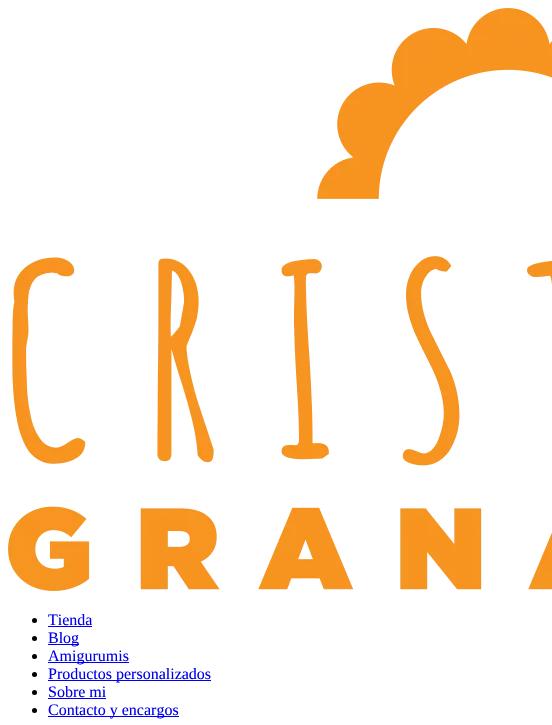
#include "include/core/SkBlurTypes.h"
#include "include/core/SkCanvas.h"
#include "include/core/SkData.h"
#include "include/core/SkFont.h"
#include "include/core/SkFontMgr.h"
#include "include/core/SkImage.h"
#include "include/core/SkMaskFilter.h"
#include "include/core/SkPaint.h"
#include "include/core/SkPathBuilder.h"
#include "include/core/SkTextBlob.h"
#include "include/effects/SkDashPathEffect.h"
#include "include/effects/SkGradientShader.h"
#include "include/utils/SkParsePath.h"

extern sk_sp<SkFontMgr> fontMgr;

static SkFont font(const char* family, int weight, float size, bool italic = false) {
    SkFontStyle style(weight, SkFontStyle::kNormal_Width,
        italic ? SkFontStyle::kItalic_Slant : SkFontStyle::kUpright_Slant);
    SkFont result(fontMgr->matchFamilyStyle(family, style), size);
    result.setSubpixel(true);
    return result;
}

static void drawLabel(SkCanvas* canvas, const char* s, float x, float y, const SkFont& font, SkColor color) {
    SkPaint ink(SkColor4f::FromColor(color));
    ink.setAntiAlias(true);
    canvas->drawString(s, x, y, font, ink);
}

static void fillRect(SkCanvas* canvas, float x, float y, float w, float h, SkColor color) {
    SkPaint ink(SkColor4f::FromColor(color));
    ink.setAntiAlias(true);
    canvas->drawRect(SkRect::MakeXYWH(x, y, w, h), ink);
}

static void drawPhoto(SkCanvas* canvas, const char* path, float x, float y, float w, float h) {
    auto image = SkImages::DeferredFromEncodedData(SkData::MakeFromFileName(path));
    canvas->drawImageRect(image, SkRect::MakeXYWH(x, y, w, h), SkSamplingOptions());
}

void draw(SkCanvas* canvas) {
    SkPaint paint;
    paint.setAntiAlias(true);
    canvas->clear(0xFFFFFFFF);
    drawPhoto(canvas, "assets/img1.png", 8, 8, 544, 583);
    paint.setColor(0xFF000000);
    canvas->drawCircle(34.5f, 620.5f, 2.5f, paint);
    SkFont font1 = font("Liberation Serif", 400, 16);
    drawLabel(canvas, "Tienda", 48, 625, font1, 0xFF0000EE);
    fillRect(canvas, 48, 626, 44, 1, 0xFF0000EE);
    canvas->drawCircle(34.5f, 638.5f, 2.5f, paint);
    fillRect(canvas, 48, 644, 31, 1, 0xFF0000EE);
    drawLabel(canvas, "Blog", 48, 643, font1, 0xFF0000EE);
    canvas->drawCircle(34.5f, 656.5f, 2.5f, paint);
    fillRect(canvas, 48, 662, 81, 1, 0xFF0000EE);
    drawLabel(canvas, "Amigurumis", 48, 661, font1, 0xFF0000EE);
    canvas->drawCircle(34.5f, 674.5f, 2.5f, paint);
    fillRect(canvas, 48, 680, 163, 1, 0xFF0000EE);
    drawLabel(canvas, "Productos personalizados", 48, 679, font1, 0xFF0000EE);
    canvas->drawCircle(34.5f, 692.5f, 2.5f, paint);
    drawLabel(canvas, "Sobre mi", 48, 697, font1, 0xFF0000EE);
    fillRect(canvas, 48, 698, 58, 1, 0xFF0000EE);
    canvas->drawCircle(34.5f, 710.5f, 2.5f, paint);
    fillRect(canvas, 48, 716, 131, 1, 0xFF0000EE);
    drawLabel(canvas, "Contacto y encargos", 48, 715, font1, 0xFF0000EE);
}
